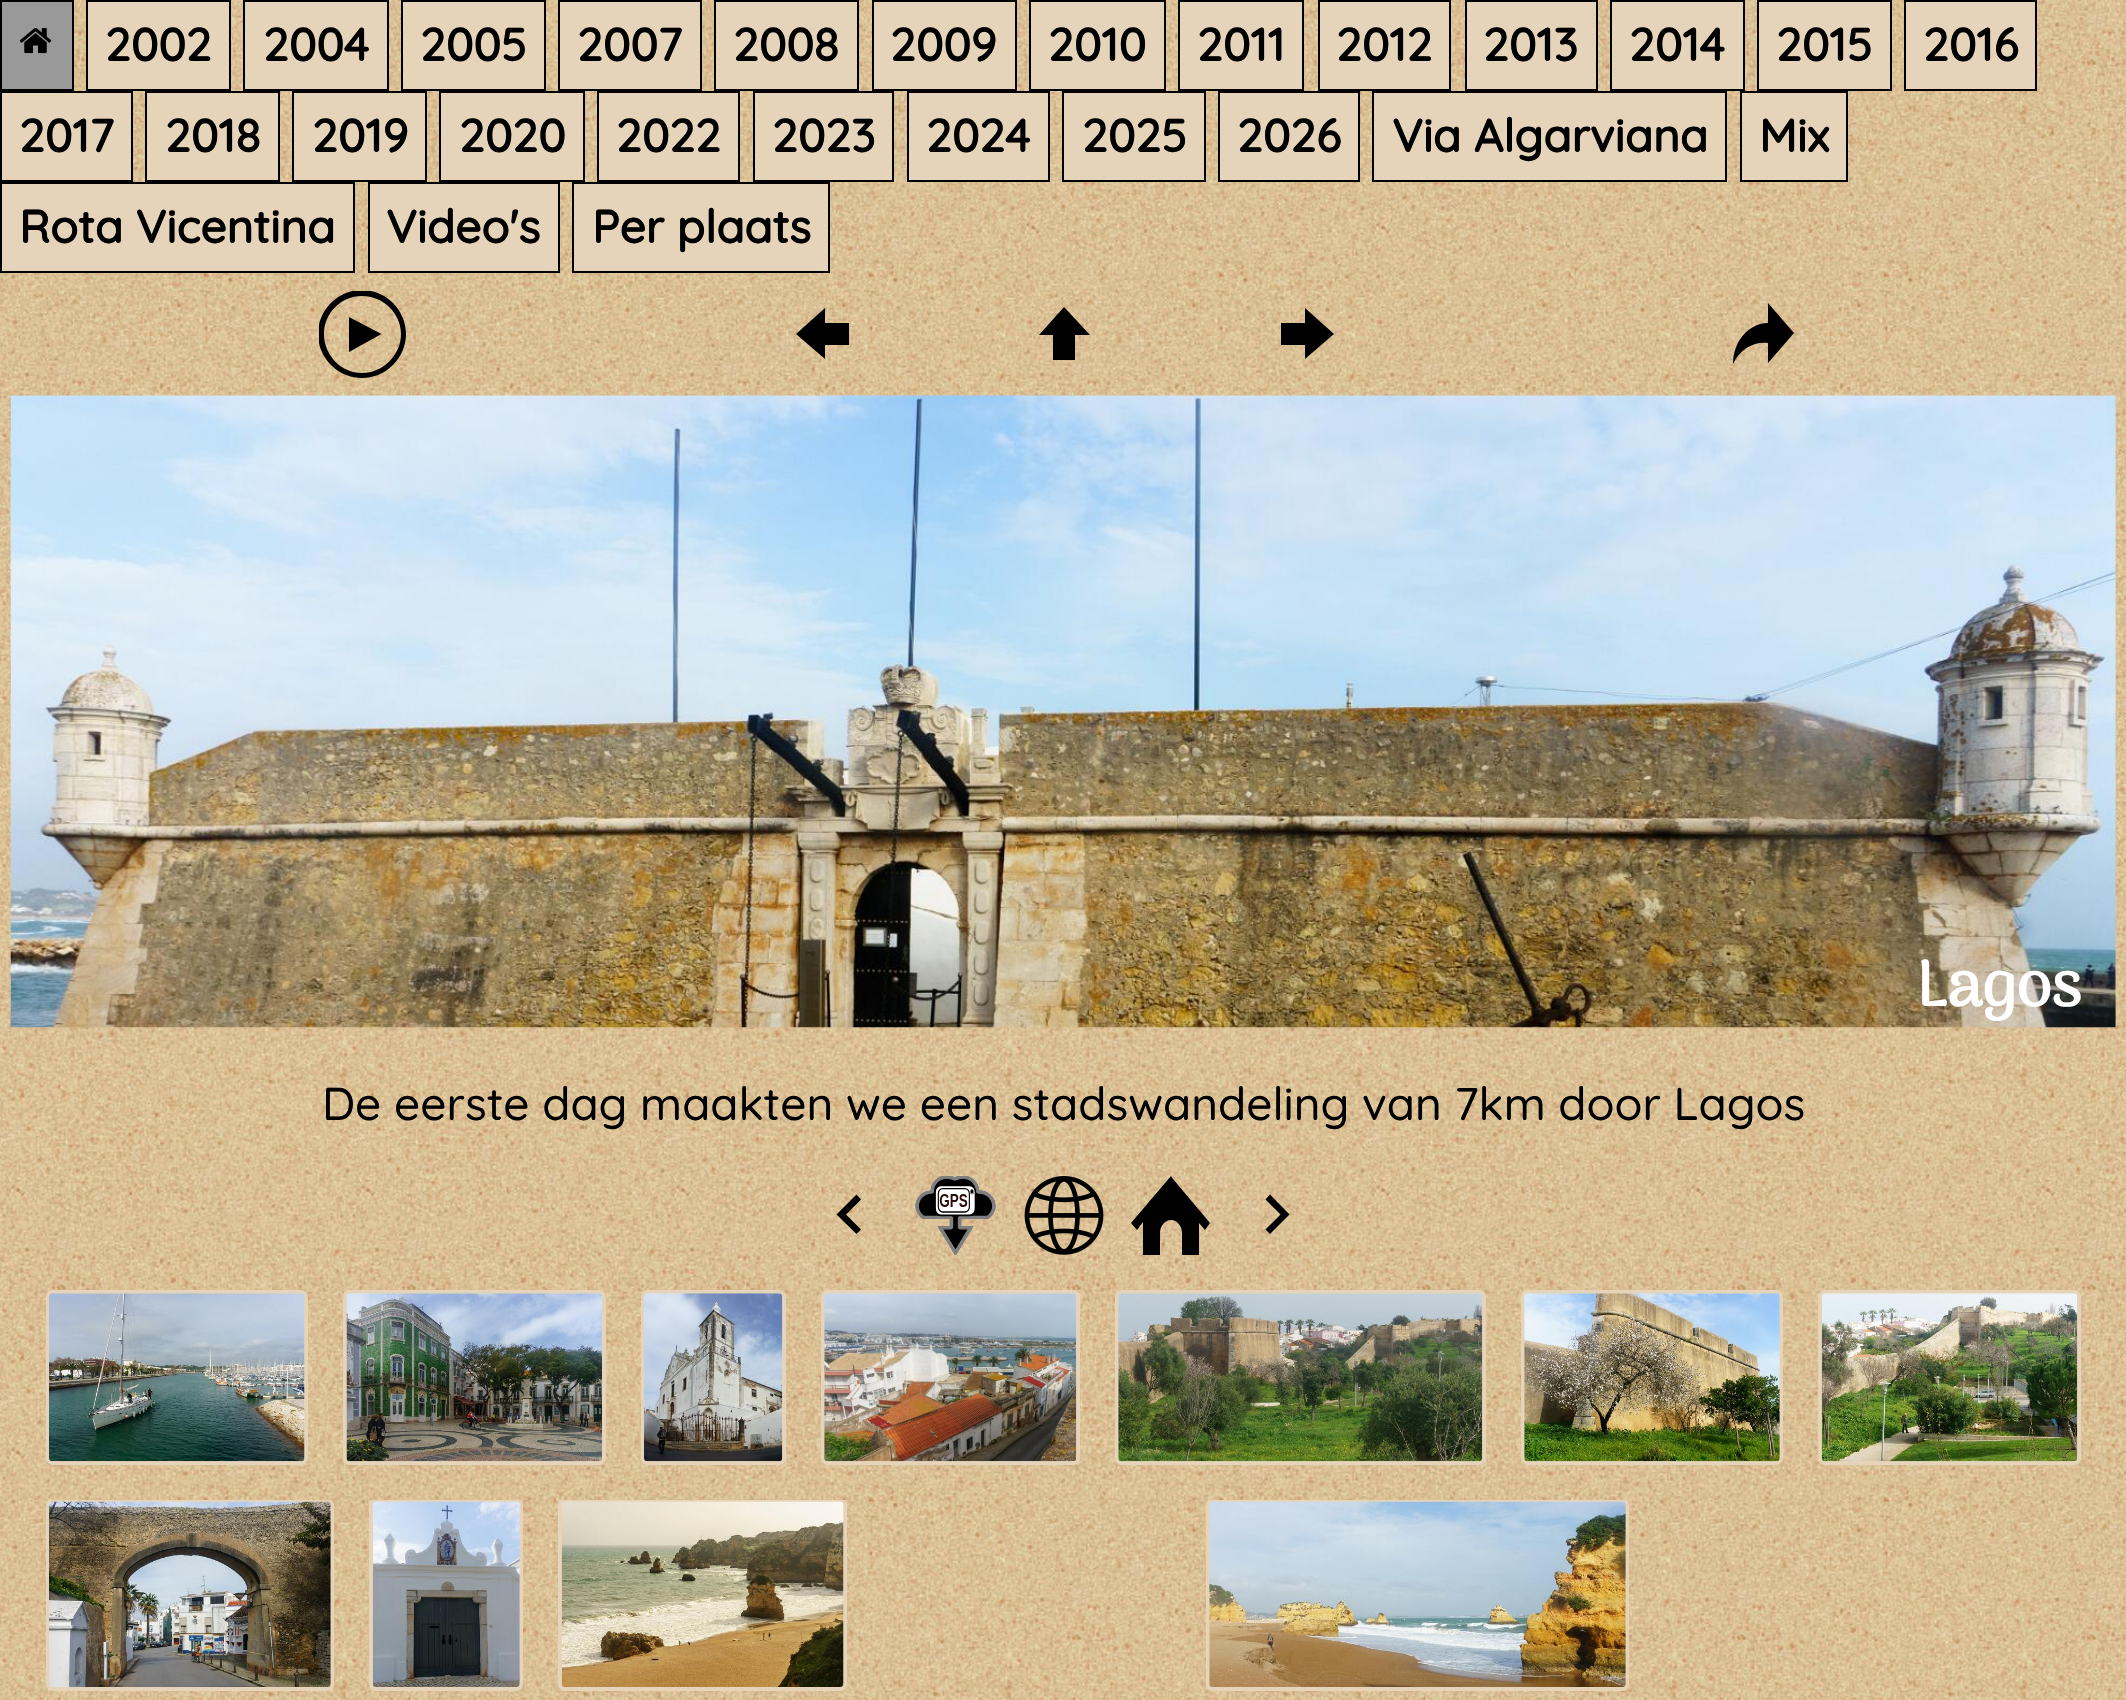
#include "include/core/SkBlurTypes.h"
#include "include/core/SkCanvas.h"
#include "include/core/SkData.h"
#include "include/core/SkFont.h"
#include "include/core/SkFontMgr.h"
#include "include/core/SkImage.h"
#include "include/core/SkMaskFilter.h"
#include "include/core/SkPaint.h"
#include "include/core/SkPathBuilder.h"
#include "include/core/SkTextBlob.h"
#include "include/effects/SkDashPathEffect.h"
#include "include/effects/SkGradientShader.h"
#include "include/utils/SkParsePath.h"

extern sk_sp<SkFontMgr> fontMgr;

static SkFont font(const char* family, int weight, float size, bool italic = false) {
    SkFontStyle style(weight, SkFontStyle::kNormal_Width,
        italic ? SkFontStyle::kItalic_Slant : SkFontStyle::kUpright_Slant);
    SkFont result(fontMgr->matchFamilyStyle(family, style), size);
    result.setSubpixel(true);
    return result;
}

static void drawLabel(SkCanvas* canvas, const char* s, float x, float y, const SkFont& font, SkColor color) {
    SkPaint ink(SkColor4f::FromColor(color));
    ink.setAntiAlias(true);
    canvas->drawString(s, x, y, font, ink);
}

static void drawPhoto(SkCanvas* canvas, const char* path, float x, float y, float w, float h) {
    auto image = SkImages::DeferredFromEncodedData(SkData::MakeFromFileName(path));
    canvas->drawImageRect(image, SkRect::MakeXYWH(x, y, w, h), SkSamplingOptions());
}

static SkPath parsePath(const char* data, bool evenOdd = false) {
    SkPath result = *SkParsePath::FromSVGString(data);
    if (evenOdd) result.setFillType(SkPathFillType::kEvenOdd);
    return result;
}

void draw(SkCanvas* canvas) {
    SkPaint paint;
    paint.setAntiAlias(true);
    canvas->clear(0xFFFFFFFF);
    drawPhoto(canvas, "assets/img1.png", 0, 0, 2126, 1700);
    paint.setColor(0xFF999999);
    canvas->drawRect(SkRect::MakeXYWH(1, 1, 72, 89), paint);
    paint.setStroke(true);
    paint.setStrokeWidth(2);
    paint.setColor(0xFF000000);
    canvas->drawRect(SkRect::MakeXYWH(1, 1, 72, 89), paint);
    drawPhoto(canvas, "assets/img2.png", 19, 28, 33, 26);
    paint.setStroke(false);
    paint.setColor(0xFFE6D4BA);
    canvas->drawRect(SkRect::MakeXYWH(87, 1, 143, 89), paint);
    paint.setStroke(true);
    paint.setColor(0xFF000000);
    canvas->drawRect(SkRect::MakeXYWH(87, 1, 143, 89), paint);
    SkFont font1 = font("Quicksand", 700, 45.9f);
    drawLabel(canvas, "2002", 105, 61, font1, 0xFF000000);
    paint.setStroke(false);
    paint.setColor(0xFFE6D4BA);
    canvas->drawRect(SkRect::MakeXYWH(244, 1, 144, 89), paint);
    paint.setStroke(true);
    paint.setColor(0xFF000000);
    canvas->drawRect(SkRect::MakeXYWH(244, 1, 144, 89), paint);
    drawLabel(canvas, "2004", 263, 61, font1, 0xFF000000);
    paint.setStroke(false);
    paint.setColor(0xFFE6D4BA);
    canvas->drawRect(SkRect::MakeXYWH(402, 1, 143, 89), paint);
    paint.setStroke(true);
    paint.setColor(0xFF000000);
    canvas->drawRect(SkRect::MakeXYWH(402, 1, 143, 89), paint);
    drawLabel(canvas, "2005", 420, 61, font1, 0xFF000000);
    paint.setStroke(false);
    paint.setColor(0xFFE6D4BA);
    canvas->drawRect(SkRect::MakeXYWH(559, 1, 142, 89), paint);
    paint.setStroke(true);
    paint.setColor(0xFF000000);
    canvas->drawRect(SkRect::MakeXYWH(559, 1, 142, 89), paint);
    drawLabel(canvas, "2007", 577, 61, font1, 0xFF000000);
    paint.setStroke(false);
    paint.setColor(0xFFE6D4BA);
    canvas->drawRect(SkRect::MakeXYWH(715, 1, 143, 89), paint);
    paint.setStroke(true);
    paint.setColor(0xFF000000);
    canvas->drawRect(SkRect::MakeXYWH(715, 1, 143, 89), paint);
    drawLabel(canvas, "2008", 733, 61, font1, 0xFF000000);
    paint.setStroke(false);
    paint.setColor(0xFFE6D4BA);
    canvas->drawRect(SkRect::MakeXYWH(873, 1, 143, 89), paint);
    paint.setStroke(true);
    paint.setColor(0xFF000000);
    canvas->drawRect(SkRect::MakeXYWH(873, 1, 143, 89), paint);
    drawLabel(canvas, "2009", 890, 61, font1, 0xFF000000);
    paint.setStroke(false);
    paint.setColor(0xFFE6D4BA);
    canvas->drawRect(SkRect::MakeXYWH(1030, 1, 135, 89), paint);
    paint.setStroke(true);
    paint.setColor(0xFF000000);
    canvas->drawRect(SkRect::MakeXYWH(1030, 1, 135, 89), paint);
    drawLabel(canvas, "2010", 1048, 61, font1, 0xFF000000);
    paint.setStroke(false);
    paint.setColor(0xFFE6D4BA);
    canvas->drawRect(SkRect::MakeXYWH(1179, 1, 124, 89), paint);
    paint.setStroke(true);
    paint.setColor(0xFF000000);
    canvas->drawRect(SkRect::MakeXYWH(1179, 1, 124, 89), paint);
    drawLabel(canvas, "2011", 1197, 61, font1, 0xFF000000);
    paint.setStroke(false);
    paint.setColor(0xFFE6D4BA);
    canvas->drawRect(SkRect::MakeXYWH(1319, 1, 131, 89), paint);
    paint.setStroke(true);
    paint.setColor(0xFF000000);
    canvas->drawRect(SkRect::MakeXYWH(1319, 1, 131, 89), paint);
    drawLabel(canvas, "2012", 1336, 61, font1, 0xFF000000);
    paint.setStroke(false);
    paint.setColor(0xFFE6D4BA);
    canvas->drawRect(SkRect::MakeXYWH(1466, 1, 131, 89), paint);
    paint.setStroke(true);
    paint.setColor(0xFF000000);
    canvas->drawRect(SkRect::MakeXYWH(1466, 1, 131, 89), paint);
    drawLabel(canvas, "2013", 1483, 61, font1, 0xFF000000);
    paint.setStroke(false);
    paint.setColor(0xFFE6D4BA);
    canvas->drawRect(SkRect::MakeXYWH(1611, 1, 133, 89), paint);
    paint.setStroke(true);
    paint.setColor(0xFF000000);
    canvas->drawRect(SkRect::MakeXYWH(1611, 1, 133, 89), paint);
    drawLabel(canvas, "2014", 1629, 61, font1, 0xFF000000);
    paint.setStroke(false);
    paint.setColor(0xFFE6D4BA);
    canvas->drawRect(SkRect::MakeXYWH(1758, 1, 133, 89), paint);
    paint.setStroke(true);
    paint.setColor(0xFF000000);
    canvas->drawRect(SkRect::MakeXYWH(1758, 1, 133, 89), paint);
    drawLabel(canvas, "2015", 1776, 61, font1, 0xFF000000);
    paint.setStroke(false);
    paint.setColor(0xFFE6D4BA);
    canvas->drawRect(SkRect::MakeXYWH(1905, 1, 131, 89), paint);
    paint.setStroke(true);
    paint.setColor(0xFF000000);
    canvas->drawRect(SkRect::MakeXYWH(1905, 1, 131, 89), paint);
    drawLabel(canvas, "2016", 1923, 61, font1, 0xFF000000);
    paint.setStroke(false);
    paint.setColor(0xFFE6D4BA);
    canvas->drawRect(SkRect::MakeXYWH(1, 92, 131, 89), paint);
    paint.setStroke(true);
    paint.setColor(0xFF000000);
    canvas->drawRect(SkRect::MakeXYWH(1, 92, 131, 89), paint);
    drawLabel(canvas, "2017", 19, 152, font1, 0xFF000000);
    paint.setStroke(false);
    paint.setColor(0xFFE6D4BA);
    canvas->drawRect(SkRect::MakeXYWH(146, 92, 133, 89), paint);
    paint.setStroke(true);
    paint.setColor(0xFF000000);
    canvas->drawRect(SkRect::MakeXYWH(146, 92, 133, 89), paint);
    drawLabel(canvas, "2018", 165, 152, font1, 0xFF000000);
    paint.setStroke(false);
    paint.setColor(0xFFE6D4BA);
    canvas->drawRect(SkRect::MakeXYWH(293, 92, 133, 89), paint);
    paint.setStroke(true);
    paint.setColor(0xFF000000);
    canvas->drawRect(SkRect::MakeXYWH(293, 92, 133, 89), paint);
    drawLabel(canvas, "2019", 312, 152, font1, 0xFF000000);
    paint.setStroke(false);
    paint.setColor(0xFFE6D4BA);
    canvas->drawRect(SkRect::MakeXYWH(440, 92, 144, 89), paint);
    paint.setStroke(true);
    paint.setColor(0xFF000000);
    canvas->drawRect(SkRect::MakeXYWH(440, 92, 144, 89), paint);
    drawLabel(canvas, "2020", 459, 152, font1, 0xFF000000);
    paint.setStroke(false);
    paint.setColor(0xFFE6D4BA);
    canvas->drawRect(SkRect::MakeXYWH(598, 92, 141, 89), paint);
    paint.setStroke(true);
    paint.setColor(0xFF000000);
    canvas->drawRect(SkRect::MakeXYWH(598, 92, 141, 89), paint);
    drawLabel(canvas, "2022", 616, 152, font1, 0xFF000000);
    paint.setStroke(false);
    paint.setColor(0xFFE6D4BA);
    canvas->drawRect(SkRect::MakeXYWH(754, 92, 139, 89), paint);
    paint.setStroke(true);
    paint.setColor(0xFF000000);
    canvas->drawRect(SkRect::MakeXYWH(754, 92, 139, 89), paint);
    drawLabel(canvas, "2023", 772, 152, font1, 0xFF000000);
    paint.setStroke(false);
    paint.setColor(0xFFE6D4BA);
    canvas->drawRect(SkRect::MakeXYWH(908, 92, 141, 89), paint);
    paint.setStroke(true);
    paint.setColor(0xFF000000);
    canvas->drawRect(SkRect::MakeXYWH(908, 92, 141, 89), paint);
    drawLabel(canvas, "2024", 926, 152, font1, 0xFF000000);
    paint.setStroke(false);
    paint.setColor(0xFFE6D4BA);
    canvas->drawRect(SkRect::MakeXYWH(1063, 92, 142, 89), paint);
    paint.setStroke(true);
    paint.setColor(0xFF000000);
    canvas->drawRect(SkRect::MakeXYWH(1063, 92, 142, 89), paint);
    drawLabel(canvas, "2025", 1082, 152, font1, 0xFF000000);
    paint.setStroke(false);
    paint.setColor(0xFFE6D4BA);
    canvas->drawRect(SkRect::MakeXYWH(1219, 92, 140, 89), paint);
    paint.setStroke(true);
    paint.setColor(0xFF000000);
    canvas->drawRect(SkRect::MakeXYWH(1219, 92, 140, 89), paint);
    drawLabel(canvas, "2026", 1237, 152, font1, 0xFF000000);
    paint.setStroke(false);
    paint.setColor(0xFFE6D4BA);
    canvas->drawRect(SkRect::MakeXYWH(1373, 92, 353, 89), paint);
    paint.setStroke(true);
    paint.setColor(0xFF000000);
    canvas->drawRect(SkRect::MakeXYWH(1373, 92, 353, 89), paint);
    drawLabel(canvas, "Via Algarviana", 1392, 152, font1, 0xFF000000);
    paint.setStroke(false);
    paint.setColor(0xFFE6D4BA);
    canvas->drawRect(SkRect::MakeXYWH(1741, 92, 106, 89), paint);
    paint.setStroke(true);
    paint.setColor(0xFF000000);
    canvas->drawRect(SkRect::MakeXYWH(1741, 92, 106, 89), paint);
    drawLabel(canvas, "Mix", 1759, 152, font1, 0xFF000000);
    paint.setStroke(false);
    paint.setColor(0xFFE6D4BA);
    canvas->drawRect(SkRect::MakeXYWH(1, 183, 353, 89), paint);
    paint.setStroke(true);
    paint.setColor(0xFF000000);
    canvas->drawRect(SkRect::MakeXYWH(1, 183, 353, 89), paint);
    drawLabel(canvas, "Rota Vicentina", 19, 243, font1, 0xFF000000);
    paint.setStroke(false);
    paint.setColor(0xFFE6D4BA);
    canvas->drawRect(SkRect::MakeXYWH(369, 183, 190, 89), paint);
    paint.setStroke(true);
    paint.setColor(0xFF000000);
    canvas->drawRect(SkRect::MakeXYWH(369, 183, 190, 89), paint);
    drawLabel(canvas, "Video's", 386, 243, font1, 0xFF000000);
    paint.setStroke(false);
    paint.setColor(0xFFE6D4BA);
    canvas->drawRect(SkRect::MakeXYWH(573, 183, 256, 89), paint);
    paint.setStroke(true);
    paint.setColor(0xFF000000);
    canvas->drawRect(SkRect::MakeXYWH(573, 183, 256, 89), paint);
    drawLabel(canvas, "Per plaats", 592, 243, font1, 0xFF000000);
    canvas->save();
    canvas->clipRect(SkRect::MakeXYWH(319, 291, 87, 87));
    paint.setStroke(false);
    paint.setColor(0xFF010101);
    canvas->drawPath(parsePath("M362 290C338 290 318 310 318 334C318 358 338 378 362 378C386 378 406 358 406 334C406 310 386 290 362 290ZM362 373C341 373 324 355 324 334C324 313 341 296 362 296C383 296 401 313 401 334C401 355 383 373 362 373Z"), paint);
    canvas->restore();
    canvas->drawPath(parsePath("M349 334V352L381.5 334L349 317Z"), paint);
    paint.setColor(0xFF000000);
    canvas->drawPath(parsePath("M796 334L825 308V323H849V345H825V359ZM858 357V359ZM858 349H858ZM859 316ZM860 310H860ZM860 315ZM866 335H866Z"), paint);
    canvas->drawPath(parsePath("M1064 307L1039 335H1053V360H1075V335H1090ZM1088 368H1090ZM1079 368H1080ZM1046 369ZM1040 370H1041ZM1045 370ZM1065 376H1065Z"), paint);
    canvas->drawPath(parsePath("M1334 334L1305 308V323H1281V345H1305V359ZM1272 357V359ZM1272 349H1272ZM1271 316ZM1270 310V311ZM1270 315ZM1265 335H1264Z"), paint);
    canvas->drawPath(parsePath("M1794 333L1768 303V323C1749 323 1733 341 1733 364C1740 349 1754 341 1768 343V363Z"), paint);
    drawPhoto(canvas, "assets/img3.png", 10, 395, 2106, 633);
    SkFont font2 = font("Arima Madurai", 700, 64);
    drawLabel(canvas, "Lagos", 1916, 1006, font2, 0xFFFFFFFF);
    SkFont font3 = font("Quicksand", 300, 45.9f);
    drawLabel(canvas, "De eerste dag maakten we een stadswandeling van 7km door Lagos", 322, 1120, font3, 0xFF000000);
    canvas->drawPath(parsePath("M836.5 1214.5L856.5 1234L861 1229.5L846 1214.5L861 1199.5L856.5 1194.5Z"), paint);
    drawPhoto(canvas, "assets/img4.png", 915, 1176, 81, 79);
    drawPhoto(canvas, "assets/img5.png", 1024, 1176, 80, 79);
    paint.setColor(0xFF010101);
    canvas->drawPath(parsePath("M1173 1179L1171 1176L1131 1223L1137 1230L1143 1222V1255H1160V1233C1160 1226 1165 1220 1171 1220C1177 1220 1182 1226 1182 1233V1255H1199V1223L1205 1230L1210 1223Z"), paint);
    paint.setColor(0xFF000000);
    canvas->drawPath(parsePath("M1289.5 1214.5L1270 1234L1265.5 1229.5L1280.5 1214.5L1265.5 1199.5L1270 1194.5Z"), paint);
    paint.setStroke(true);
    paint.setStrokeWidth(4);
    paint.setColor(0xFFE6D4BA);
    canvas->drawRoundRect(SkRect::MakeXYWH(48, 1292, 258, 171), 5, 5, paint);
    drawPhoto(canvas, "assets/img6.png", 49, 1293, 256, 169);
    canvas->drawRoundRect(SkRect::MakeXYWH(345, 1292, 259, 171), 5, 5, paint);
    drawPhoto(canvas, "assets/img7.png", 346, 1293, 256, 169);
    canvas->drawRoundRect(SkRect::MakeXYWH(643, 1292, 141, 171), 5, 5, paint);
    drawPhoto(canvas, "assets/img8.png", 644, 1293, 139, 169);
    canvas->drawRoundRect(SkRect::MakeXYWH(823, 1292, 255, 171), 5, 5, paint);
    drawPhoto(canvas, "assets/img9.png", 824, 1293, 253, 169);
    canvas->drawRoundRect(SkRect::MakeXYWH(1117, 1292, 367, 171), 5, 5, paint);
    drawPhoto(canvas, "assets/img10.png", 1118, 1293, 365, 169);
    canvas->drawRoundRect(SkRect::MakeXYWH(1523, 1292, 258, 171), 5, 5, paint);
    drawPhoto(canvas, "assets/img11.png", 1524, 1293, 256, 169);
    canvas->drawRoundRect(SkRect::MakeXYWH(1820, 1292, 259, 171), 5, 5, paint);
    drawPhoto(canvas, "assets/img12.png", 1821, 1293, 257, 169);
    canvas->save();
    canvas->clipRect(SkRect::MakeXYWH(46, 1500, 288, 191));
    canvas->drawRoundRect(SkRect::MakeXYWH(48, 1500, 284, 189), 5, 5, paint);
    canvas->restore();
    drawPhoto(canvas, "assets/img13.png", 49, 1501, 282, 186);
    canvas->save();
    canvas->clipRect(SkRect::MakeXYWH(369, 1500, 154, 191));
    canvas->drawRoundRect(SkRect::MakeXYWH(371, 1500, 150, 189), 5, 5, paint);
    canvas->restore();
    drawPhoto(canvas, "assets/img14.png", 372, 1501, 148, 186);
    canvas->save();
    canvas->clipRect(SkRect::MakeXYWH(558, 1500, 289, 191));
    canvas->drawRoundRect(SkRect::MakeXYWH(560, 1500, 285, 189), 5, 5, paint);
    canvas->restore();
    drawPhoto(canvas, "assets/img15.png", 561, 1501, 283, 186);
    canvas->save();
    canvas->clipRect(SkRect::MakeXYWH(1206, 1500, 423, 191));
    canvas->drawRoundRect(SkRect::MakeXYWH(1208, 1500, 419, 189), 5, 5, paint);
    canvas->restore();
    drawPhoto(canvas, "assets/img16.png", 1209, 1501, 417, 186);
}
